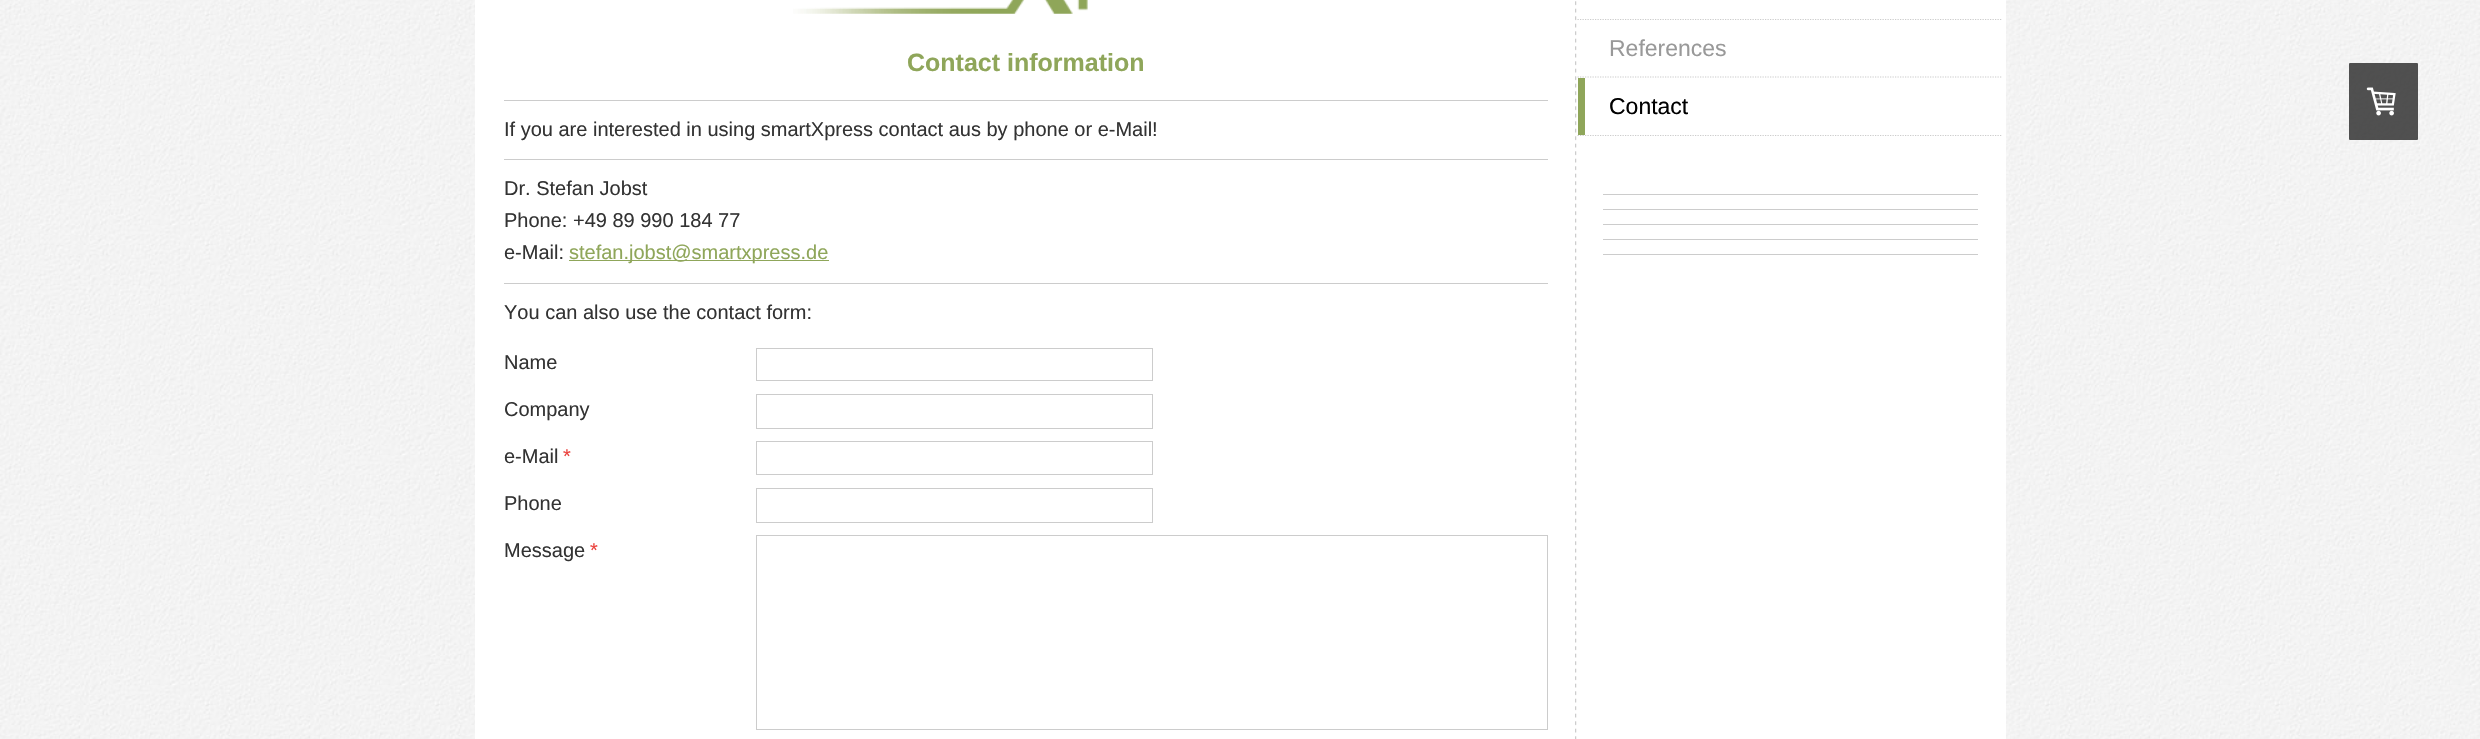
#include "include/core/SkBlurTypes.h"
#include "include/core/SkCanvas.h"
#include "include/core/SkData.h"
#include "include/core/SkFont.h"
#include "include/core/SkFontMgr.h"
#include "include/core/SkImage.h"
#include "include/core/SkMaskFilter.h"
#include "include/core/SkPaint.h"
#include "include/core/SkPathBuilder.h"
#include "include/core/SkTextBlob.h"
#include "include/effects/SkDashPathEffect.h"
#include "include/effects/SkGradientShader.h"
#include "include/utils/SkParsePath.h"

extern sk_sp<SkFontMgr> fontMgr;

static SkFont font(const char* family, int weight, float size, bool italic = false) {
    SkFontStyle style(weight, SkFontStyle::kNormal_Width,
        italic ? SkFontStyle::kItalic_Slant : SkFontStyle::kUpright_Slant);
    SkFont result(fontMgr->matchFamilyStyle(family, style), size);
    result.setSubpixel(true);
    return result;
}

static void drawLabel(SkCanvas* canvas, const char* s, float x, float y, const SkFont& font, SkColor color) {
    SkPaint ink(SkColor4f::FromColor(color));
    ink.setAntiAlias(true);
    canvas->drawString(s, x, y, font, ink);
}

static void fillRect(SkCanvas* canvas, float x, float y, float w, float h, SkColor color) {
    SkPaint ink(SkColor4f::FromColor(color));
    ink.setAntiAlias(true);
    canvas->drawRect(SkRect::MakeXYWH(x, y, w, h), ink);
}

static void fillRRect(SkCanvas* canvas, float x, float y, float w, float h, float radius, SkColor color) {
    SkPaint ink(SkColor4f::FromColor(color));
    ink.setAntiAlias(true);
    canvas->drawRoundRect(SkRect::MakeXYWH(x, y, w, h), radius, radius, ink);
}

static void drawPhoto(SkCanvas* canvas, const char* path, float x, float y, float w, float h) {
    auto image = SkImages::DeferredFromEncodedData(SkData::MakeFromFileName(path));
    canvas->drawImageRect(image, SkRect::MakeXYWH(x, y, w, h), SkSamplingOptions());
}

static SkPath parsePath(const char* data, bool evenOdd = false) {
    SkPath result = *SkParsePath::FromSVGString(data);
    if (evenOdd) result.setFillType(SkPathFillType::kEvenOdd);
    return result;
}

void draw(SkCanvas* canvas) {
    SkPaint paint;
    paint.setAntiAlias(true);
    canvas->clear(0xFFFFFFFF);
    drawPhoto(canvas, "assets/img1.png", 0, 0, 2480, 739);
    fillRect(canvas, 475, 0, 1531, 739, 0xFFFFFFFF);
    drawPhoto(canvas, "assets/img2.png", 1575, 1, 2, 738);
    drawPhoto(canvas, "assets/img3.png", 793, 0, 295, 14);
    SkFont font1 = font("Liberation Sans", 700, 25);
    drawLabel(canvas, "Contact information", 907, 71, font1, 0xFF8FA65A);
    fillRect(canvas, 504, 100, 1044, 1, 0xFFCCCCCC);
    SkFont font2 = font("Liberation Sans", 400, 20);
    drawLabel(canvas, "If you are interested in using smartXpress contact aus by phone or e-Mail!", 504, 136, font2, 0xFF333333);
    fillRect(canvas, 504, 159, 1044, 1, 0xFFCCCCCC);
    drawLabel(canvas, "Dr. Stefan Jobst", 504, 195, font2, 0xFF333333);
    drawLabel(canvas, "Phone: +49 89 990 184 77", 504, 227, font2, 0xFF333333);
    drawLabel(canvas, "e-Mail:", 504, 259, font2, 0xFF333333);
    fillRect(canvas, 569, 260, 260, 1, 0xFF8FA65A);
    drawLabel(canvas, "stefan.jobst@smartxpress.de", 569, 259, font2, 0xFF8FA65A);
    fillRect(canvas, 504, 283, 1044, 1, 0xFFCCCCCC);
    drawLabel(canvas, "You can also use the contact form:", 504, 319, font2, 0xFF333333);
    drawLabel(canvas, "Name", 504, 369, font2, 0xFF333333);
    paint.setStroke(true);
    paint.setStrokeWidth(1);
    paint.setColor(0xFFCCCCCC);
    canvas->drawRect(SkRect::MakeXYWH(756.5f, 348.5f, 396, 32), paint);
    drawLabel(canvas, "Company", 504, 416, font2, 0xFF333333);
    canvas->drawRect(SkRect::MakeXYWH(756.5f, 394.5f, 396, 34), paint);
    drawLabel(canvas, "e-Mail", 504, 463, font2, 0xFF333333);
    drawLabel(canvas, "*", 563, 463, font2, 0xFFEB433E);
    canvas->drawRect(SkRect::MakeXYWH(756.5f, 441.5f, 396, 33), paint);
    drawLabel(canvas, "Phone", 504, 510, font2, 0xFF333333);
    canvas->drawRect(SkRect::MakeXYWH(756.5f, 488.5f, 396, 34), paint);
    drawLabel(canvas, "Message", 504, 557, font2, 0xFF333333);
    drawLabel(canvas, "*", 590, 557, font2, 0xFFEB433E);
    canvas->drawRect(SkRect::MakeXYWH(756.5f, 535.5f, 791, 194), paint);
    paint.setStrokeWidth(1.2f);
    paint.setPathEffect(SkDashPathEffect::Make({{1.25f, 1.25f}}, 0));
    canvas->drawPath(parsePath("M1577.5 19.5H2002.5"), paint);
    paint.setPathEffect(nullptr);
    fillRect(canvas, 1578, 18, 6, 1, 0xFFFFFFFF);
    paint.setPathEffect(SkDashPathEffect::Make({{1.25f, 1.25f}}, 0));
    canvas->drawPath(parsePath("M1577.5 77H2002.5"), paint);
    paint.setPathEffect(nullptr);
    fillRect(canvas, 1578, 20, 6, 1, 0xFFFFFFFF);
    SkFont font3 = font("Liberation Sans", 400, 23);
    drawLabel(canvas, "References", 1609, 56, font3, 0xFF999999);
    paint.setPathEffect(SkDashPathEffect::Make({{1.25f, 1.25f}}, 0));
    canvas->drawPath(parsePath("M1577.5 135.5H2002.5"), paint);
    paint.setPathEffect(nullptr);
    fillRect(canvas, 1578, 78, 7, 57, 0xFF8FA65A);
    drawLabel(canvas, "Contact", 1609, 114, font3, 0xFF000000);
    fillRRect(canvas, 2349, 63, 69, 77, 1, 0xD9333333);
    drawPhoto(canvas, "assets/img4.png", 2366, 87, 30, 29);
    fillRect(canvas, 1603, 194, 375, 1, 0xFFCCCCCC);
    fillRect(canvas, 1603, 209, 375, 1, 0xFFCCCCCC);
    fillRect(canvas, 1603, 224, 375, 1, 0xFFCCCCCC);
    fillRect(canvas, 1603, 239, 375, 1, 0xFFCCCCCC);
    fillRect(canvas, 1603, 254, 375, 1, 0xFFCCCCCC);
}
